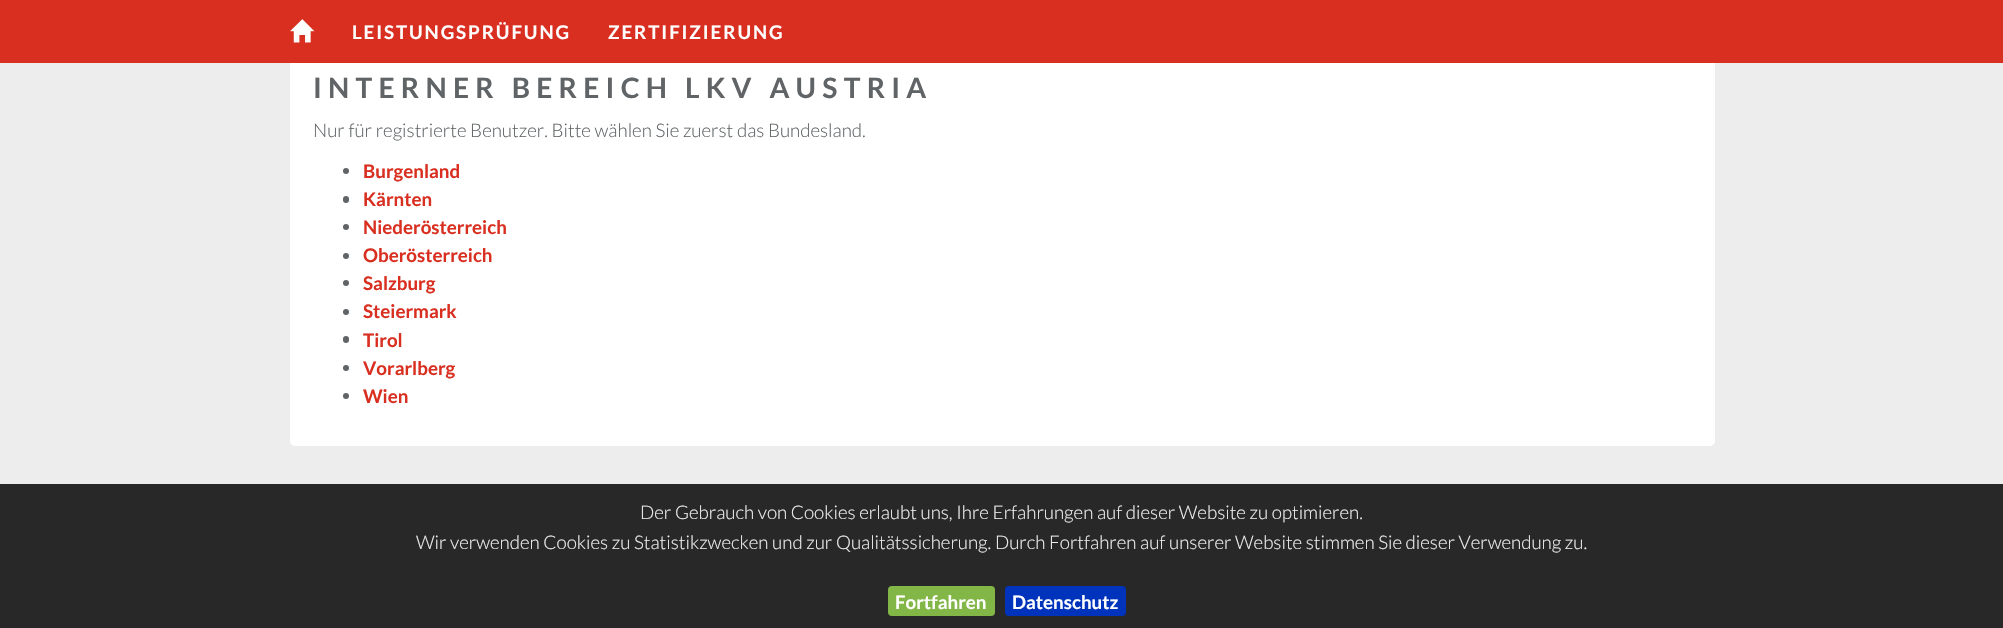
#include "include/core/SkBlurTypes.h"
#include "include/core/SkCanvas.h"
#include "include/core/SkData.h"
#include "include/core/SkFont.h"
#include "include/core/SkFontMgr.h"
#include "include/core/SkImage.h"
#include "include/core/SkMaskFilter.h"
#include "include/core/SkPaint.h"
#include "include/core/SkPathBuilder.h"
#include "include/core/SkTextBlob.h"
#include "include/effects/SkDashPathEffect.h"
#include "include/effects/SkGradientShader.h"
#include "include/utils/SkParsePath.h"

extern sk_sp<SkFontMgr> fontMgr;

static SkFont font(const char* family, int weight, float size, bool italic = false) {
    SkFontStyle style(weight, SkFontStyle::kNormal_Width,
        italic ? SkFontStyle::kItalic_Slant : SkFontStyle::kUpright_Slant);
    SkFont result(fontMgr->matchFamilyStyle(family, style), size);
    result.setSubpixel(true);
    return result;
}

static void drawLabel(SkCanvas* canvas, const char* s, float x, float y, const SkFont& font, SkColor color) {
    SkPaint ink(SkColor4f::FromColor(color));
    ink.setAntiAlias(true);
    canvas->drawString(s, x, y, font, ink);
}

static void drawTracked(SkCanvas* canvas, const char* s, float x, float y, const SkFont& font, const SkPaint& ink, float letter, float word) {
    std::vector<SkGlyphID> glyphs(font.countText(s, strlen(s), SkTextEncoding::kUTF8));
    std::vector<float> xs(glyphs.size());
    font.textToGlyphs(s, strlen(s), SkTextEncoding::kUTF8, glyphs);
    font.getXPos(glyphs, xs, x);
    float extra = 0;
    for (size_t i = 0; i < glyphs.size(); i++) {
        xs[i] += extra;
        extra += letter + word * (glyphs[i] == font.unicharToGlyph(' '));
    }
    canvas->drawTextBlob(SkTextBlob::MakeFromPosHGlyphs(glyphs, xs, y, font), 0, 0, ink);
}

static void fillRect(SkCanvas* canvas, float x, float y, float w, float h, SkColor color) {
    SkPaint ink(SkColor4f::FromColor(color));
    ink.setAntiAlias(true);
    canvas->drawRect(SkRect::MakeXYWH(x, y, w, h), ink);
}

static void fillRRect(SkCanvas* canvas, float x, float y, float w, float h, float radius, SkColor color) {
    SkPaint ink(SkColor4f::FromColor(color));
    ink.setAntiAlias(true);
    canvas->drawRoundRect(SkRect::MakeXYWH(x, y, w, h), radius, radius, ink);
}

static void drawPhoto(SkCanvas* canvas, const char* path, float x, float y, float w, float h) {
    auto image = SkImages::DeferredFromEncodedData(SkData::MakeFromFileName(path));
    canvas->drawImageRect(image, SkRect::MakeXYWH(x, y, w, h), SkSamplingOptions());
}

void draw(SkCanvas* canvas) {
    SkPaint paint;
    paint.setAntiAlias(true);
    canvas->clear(0xFFEDEDED);
    fillRRect(canvas, 290, 11, 1425, 435, 5, 0xFFFFFFFF);
    fillRect(canvas, 0, 0, 2003, 63, 0xFFD92F20);
    drawPhoto(canvas, "assets/img1.png", 290, 19, 25, 24);
    SkFont font1 = font("Lato", 700, 18.75f);
    paint.setColor(0xFFFFFFFF);
    drawTracked(canvas, "LEISTUNGSPRÜFUNG", 352, 39, font1, paint, 1.9f, 0);
    drawTracked(canvas, "ZERTIFIZIERUNG", 608, 39, font1, paint, 1.9f, 0);
    SkFont font2 = font("Lato", 700, 28.1f);
    paint.setColor(0xFF606466);
    drawTracked(canvas, "INTERNER BEREICH LKV AUSTRIA", 313, 98, font2, paint, 6.25f, 0);
    SkFont font3 = font("Lato", 300, 18.75f);
    drawLabel(canvas, "Nur für registrierte Benutzer. Bitte wählen Sie zuerst das Bundesland.", 313, 137, font3, 0xFF606466);
    canvas->drawCircle(346, 171, 3, paint);
    drawLabel(canvas, "Burgenland", 363, 178, font1, 0xFFD92F20);
    fillRRect(canvas, 343, 196, 6, 7, 3, 0xFF606466);
    drawLabel(canvas, "Kärnten", 363, 206, font1, 0xFFD92F20);
    canvas->drawCircle(346, 227, 3, paint);
    drawLabel(canvas, "Niederösterreich", 363, 234, font1, 0xFFD92F20);
    canvas->drawCircle(346, 256, 3, paint);
    drawLabel(canvas, "Oberösterreich", 363, 262, font1, 0xFFD92F20);
    canvas->drawCircle(346, 283, 3, paint);
    drawLabel(canvas, "Salzburg", 363, 290, font1, 0xFFD92F20);
    canvas->drawCircle(346, 312, 3, paint);
    drawLabel(canvas, "Steiermark", 363, 318, font1, 0xFFD92F20);
    fillRRect(canvas, 343, 336, 6, 7, 3, 0xFF606466);
    drawLabel(canvas, "Tirol", 363, 347, font1, 0xFFD92F20);
    canvas->drawCircle(346, 368, 3, paint);
    drawLabel(canvas, "Vorarlberg", 363, 375, font1, 0xFFD92F20);
    canvas->drawCircle(346, 396, 3, paint);
    drawLabel(canvas, "Wien", 363, 403, font1, 0xFFD92F20);
    fillRect(canvas, 0, 484, 2003, 144, 0xFF282828);
    drawLabel(canvas, "Der Gebrauch von Cookies erlaubt uns, Ihre Erfahrungen auf dieser Website zu optimieren.", 640, 519, font3, 0xFFEEEEEE);
    drawLabel(canvas, "Wir verwenden Cookies zu Statistikzwecken und zur Qualitätssicherung. Durch Fortfahren auf unserer Website stimmen Sie dieser Verwendung zu.", 416, 549, font3, 0xFFEEEEEE);
    fillRRect(canvas, 888, 586, 107, 30, 4, 0xFF82B646);
    drawLabel(canvas, "Fortfahren", 895, 609, font1, 0xFFFFFFFF);
    fillRRect(canvas, 1005, 586, 121, 30, 4, 0xFF0033BB);
    drawLabel(canvas, "Datenschutz", 1012, 609, font1, 0xFFFFFFFF);
}
